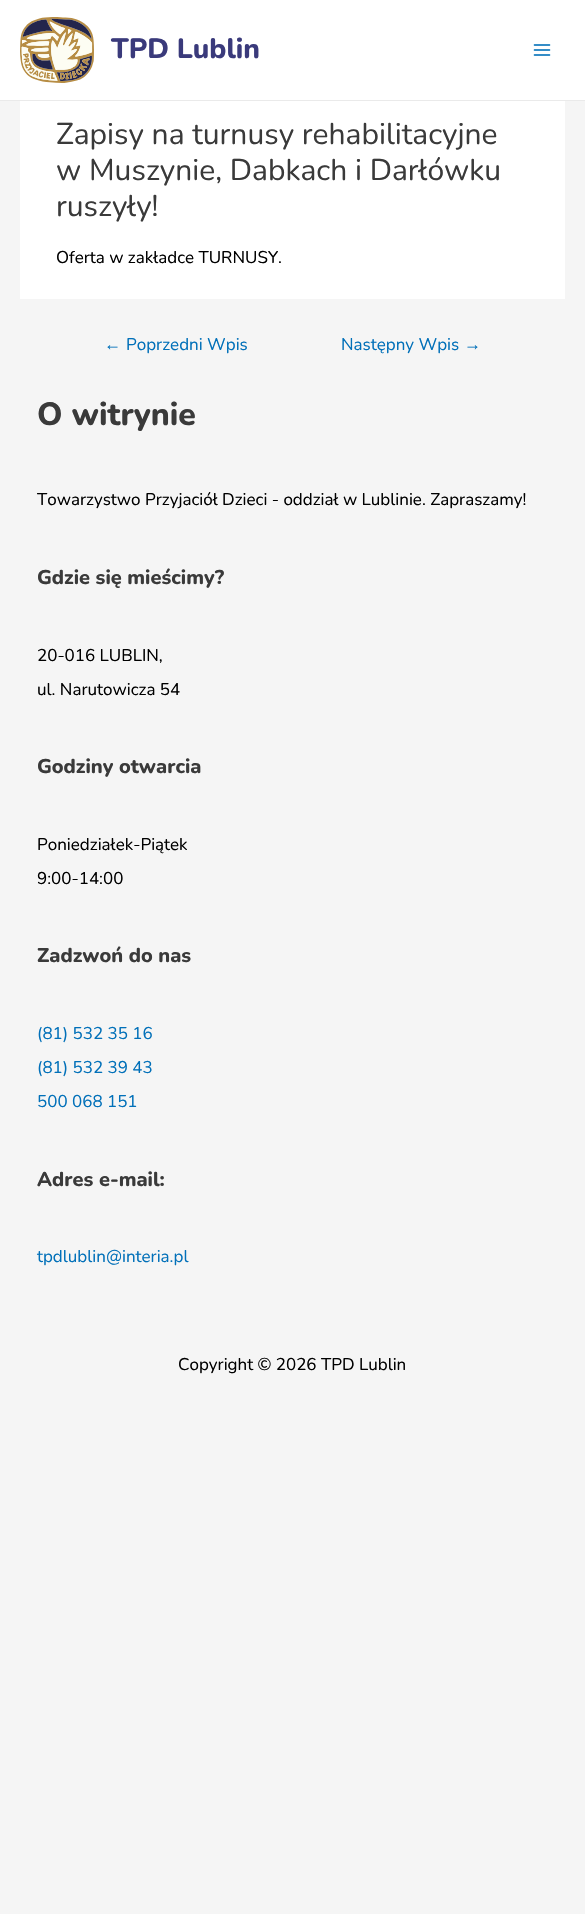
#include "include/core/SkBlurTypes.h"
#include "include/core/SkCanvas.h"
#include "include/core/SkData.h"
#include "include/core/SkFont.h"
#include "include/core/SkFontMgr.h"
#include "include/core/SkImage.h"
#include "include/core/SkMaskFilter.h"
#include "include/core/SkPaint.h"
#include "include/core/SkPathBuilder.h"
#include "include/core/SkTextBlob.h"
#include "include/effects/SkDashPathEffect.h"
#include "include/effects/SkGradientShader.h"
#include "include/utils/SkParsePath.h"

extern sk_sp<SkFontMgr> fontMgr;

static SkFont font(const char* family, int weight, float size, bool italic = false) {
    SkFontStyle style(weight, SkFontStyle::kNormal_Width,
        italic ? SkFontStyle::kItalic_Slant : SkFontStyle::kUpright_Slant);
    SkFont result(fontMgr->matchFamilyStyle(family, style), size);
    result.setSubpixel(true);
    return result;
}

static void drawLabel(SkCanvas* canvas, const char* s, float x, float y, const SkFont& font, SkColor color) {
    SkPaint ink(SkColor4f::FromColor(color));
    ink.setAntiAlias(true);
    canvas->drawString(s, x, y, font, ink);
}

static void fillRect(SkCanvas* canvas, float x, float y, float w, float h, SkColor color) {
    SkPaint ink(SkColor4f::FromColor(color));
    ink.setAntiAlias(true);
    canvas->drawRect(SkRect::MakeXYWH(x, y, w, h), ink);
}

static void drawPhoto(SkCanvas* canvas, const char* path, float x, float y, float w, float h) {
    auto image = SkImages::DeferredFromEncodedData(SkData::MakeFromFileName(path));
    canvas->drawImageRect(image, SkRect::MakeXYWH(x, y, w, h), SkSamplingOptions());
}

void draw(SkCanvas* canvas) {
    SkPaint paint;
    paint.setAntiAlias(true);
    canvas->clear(0xFFF5F5F5);
    fillRect(canvas, 0, 0, 585, 100, 0xFFFFFFFF);
    fillRect(canvas, 0, 100, 585, 1, 0xFFEAEAEA);
    drawPhoto(canvas, "assets/img1.png", 20, 17, 74, 66);
    SkFont font1 = font("Nunito", 800, 28);
    drawLabel(canvas, "TPD Lublin", 111, 58, font1, 0xFF3A3A7B);
    drawPhoto(canvas, "assets/img2.png", 533, 44, 18, 12);
    fillRect(canvas, 20, 101, 545, 198, 0xFFFFFFFF);
    SkFont font2 = font("Nunito", 400, 30);
    drawLabel(canvas, "Zapisy na turnusy rehabilitacyjne", 56, 144, font2, 0xFF3A3A3A);
    drawLabel(canvas, "w Muszynie, Dabkach i Darłówku", 56, 180, font2, 0xFF3A3A3A);
    drawLabel(canvas, "ruszyły!", 56, 216, font2, 0xFF3A3A3A);
    SkFont font3 = font("Nunito", 400, 17);
    drawLabel(canvas, "Oferta w zakładce TURNUSY.", 56, 263, font3, 0xFF000000);
    SkFont font4 = font("Liberation Sans", 400, 17);
    drawLabel(canvas, "←", 104, 350, font4, 0xFF0170B9);
    drawLabel(canvas, "Poprzedni Wpis", 126, 350, font3, 0xFF0170B9);
    drawLabel(canvas, "Następny Wpis", 341, 350, font3, 0xFF0170B9);
    drawLabel(canvas, "→", 464, 350, font4, 0xFF0170B9);
    SkFont font5 = font("Nunito", 800, 32);
    drawLabel(canvas, "O witrynie", 37, 425, font5, 0xFF3A3A3A);
    drawLabel(canvas, "Towarzystwo Przyjaciół Dzieci - oddział w Lublinie. Zapraszamy!", 37, 505, font3, 0xFF000000);
    SkFont font6 = font("Nunito", 800, 20);
    drawLabel(canvas, "Gdzie się mieścimy?", 37, 584, font6, 0xFF3A3A3A);
    drawLabel(canvas, "20-016 LUBLIN,", 37, 661, font3, 0xFF000000);
    drawLabel(canvas, "ul. Narutowicza 54", 37, 695, font3, 0xFF000000);
    drawLabel(canvas, "Godziny otwarcia", 37, 773, font6, 0xFF3A3A3A);
    drawLabel(canvas, "Poniedziałek-Piątek", 37, 850, font3, 0xFF000000);
    drawLabel(canvas, "9:00-14:00", 37, 884, font3, 0xFF000000);
    drawLabel(canvas, "Zadzwoń do nas", 37, 962, font6, 0xFF3A3A3A);
    drawLabel(canvas, "(81) 532 35 16", 37, 1039, font3, 0xFF0170B9);
    drawLabel(canvas, "(81) 532 39 43", 37, 1073, font3, 0xFF0170B9);
    drawLabel(canvas, "500 068 151", 37, 1107, font3, 0xFF0170B9);
    drawLabel(canvas, "Adres e-mail:", 37, 1186, font6, 0xFF3A3A3A);
    drawLabel(canvas, "tpdlublin@interia.pl", 37, 1262, font3, 0xFF0170B9);
    drawLabel(canvas, "Copyright © 2026 TPD Lublin", 178, 1370, font3, 0xFF000000);
}
